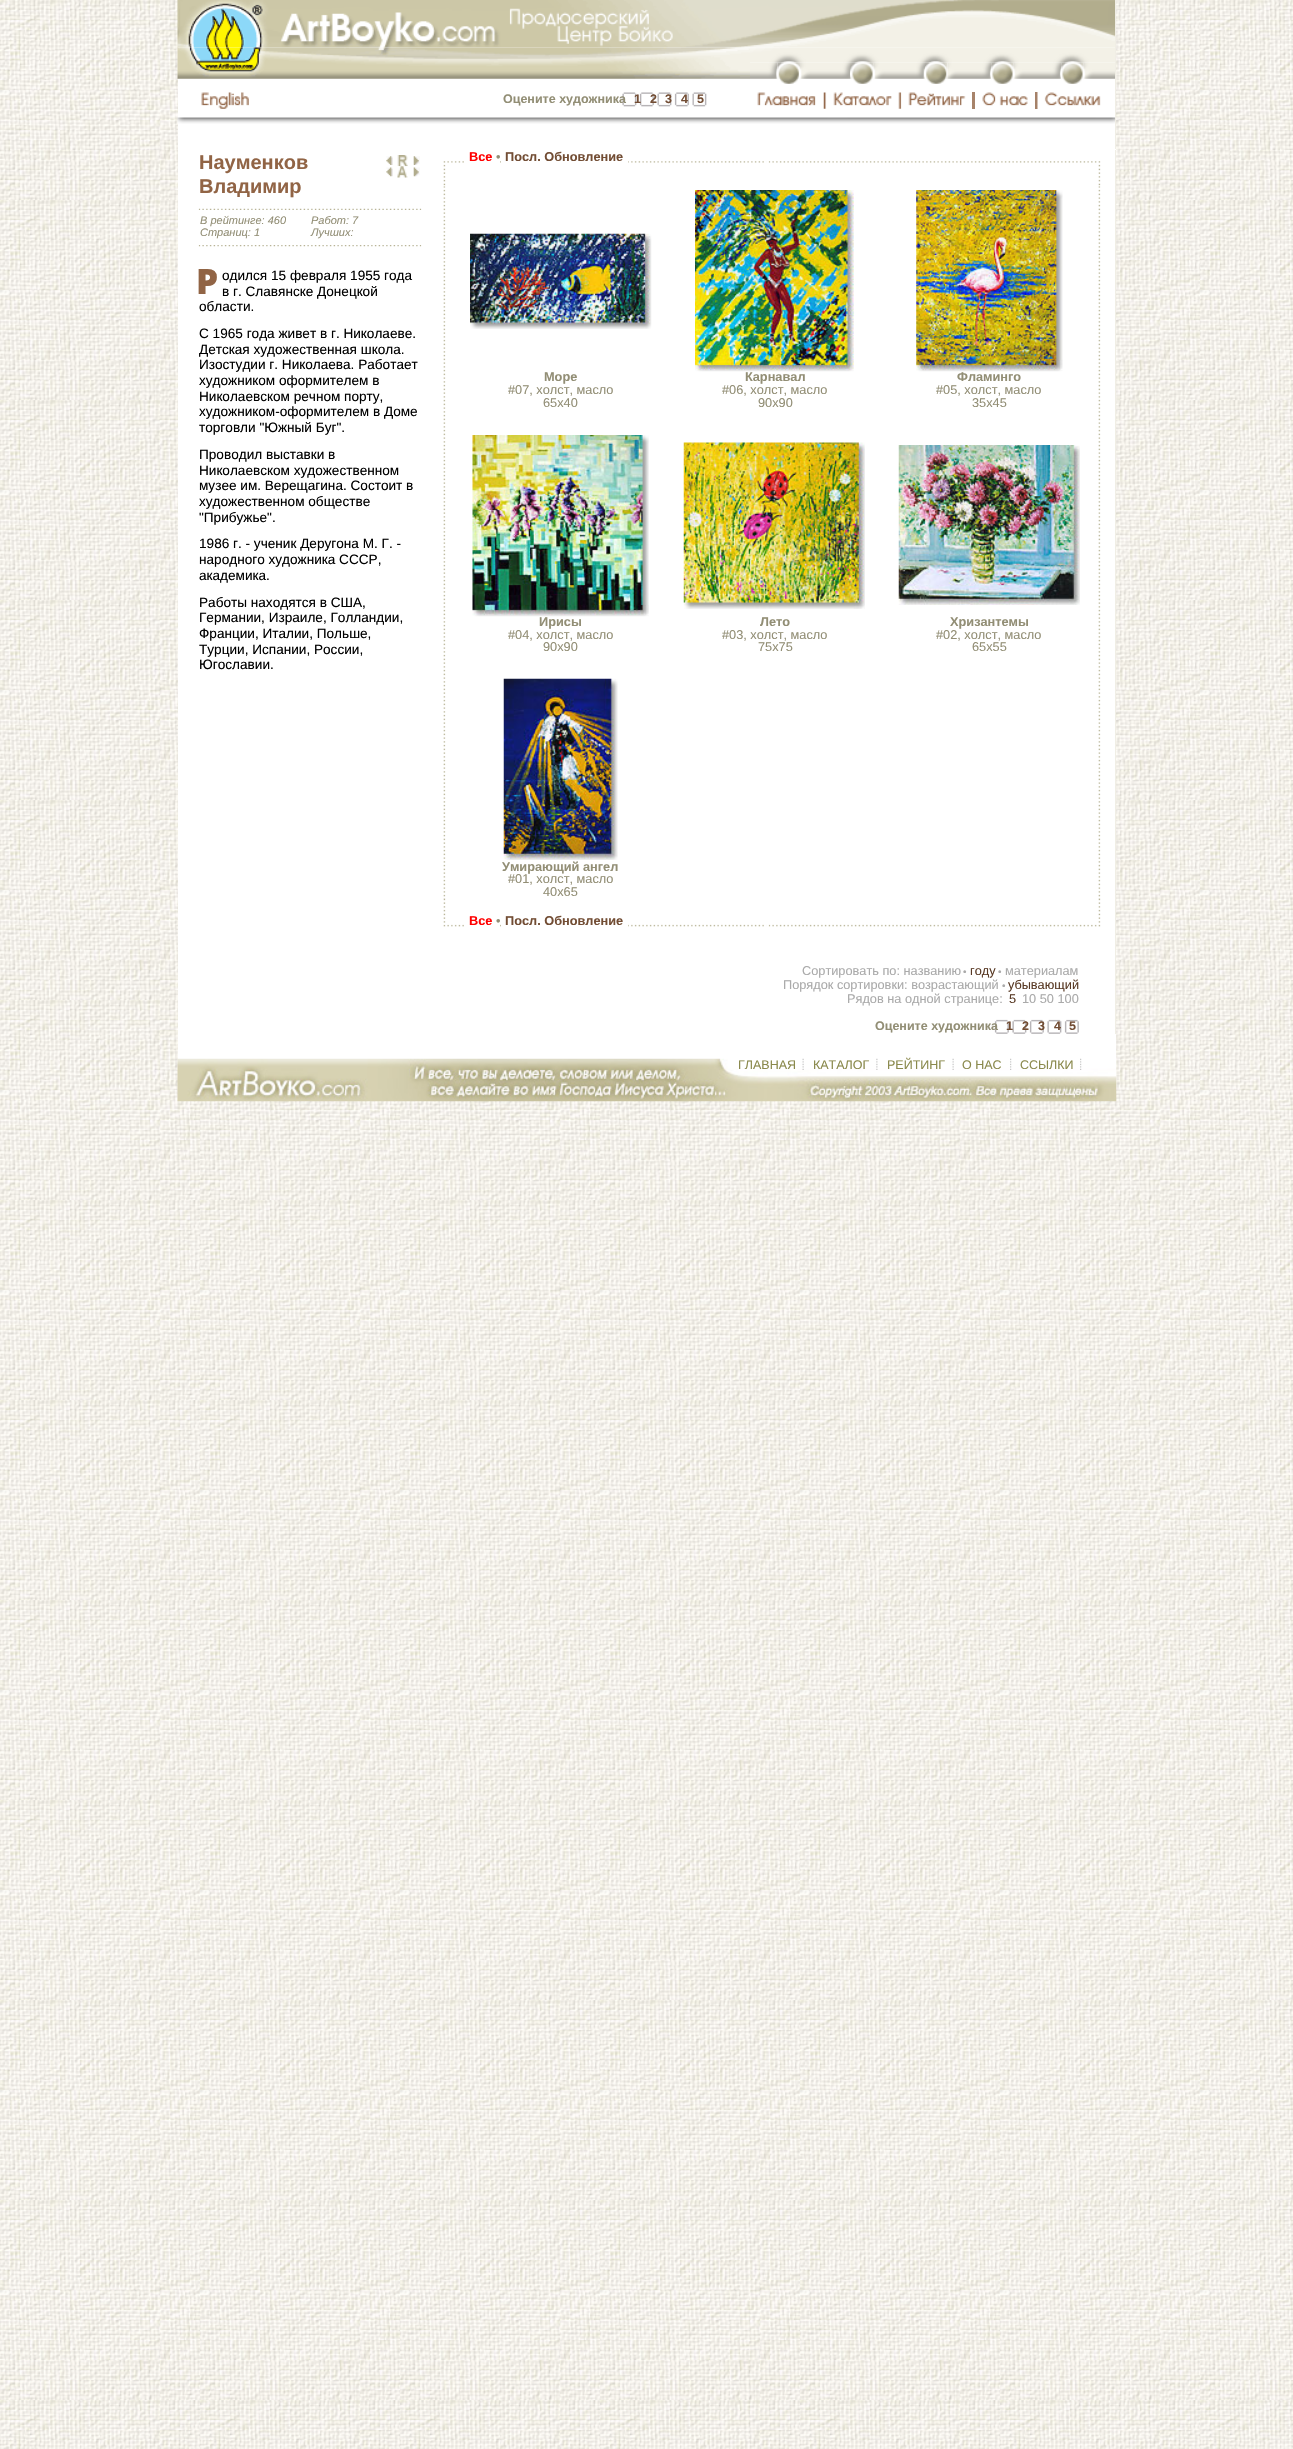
#include "include/core/SkBlurTypes.h"
#include "include/core/SkCanvas.h"
#include "include/core/SkData.h"
#include "include/core/SkFont.h"
#include "include/core/SkFontMgr.h"
#include "include/core/SkImage.h"
#include "include/core/SkMaskFilter.h"
#include "include/core/SkPaint.h"
#include "include/core/SkPathBuilder.h"
#include "include/core/SkTextBlob.h"
#include "include/effects/SkDashPathEffect.h"
#include "include/effects/SkGradientShader.h"
#include "include/utils/SkParsePath.h"

extern sk_sp<SkFontMgr> fontMgr;

static SkFont font(const char* family, int weight, float size, bool italic = false) {
    SkFontStyle style(weight, SkFontStyle::kNormal_Width,
        italic ? SkFontStyle::kItalic_Slant : SkFontStyle::kUpright_Slant);
    SkFont result(fontMgr->matchFamilyStyle(family, style), size);
    result.setSubpixel(true);
    return result;
}

static void drawLabel(SkCanvas* canvas, const char* s, float x, float y, const SkFont& font, SkColor color) {
    SkPaint ink(SkColor4f::FromColor(color));
    ink.setAntiAlias(true);
    canvas->drawString(s, x, y, font, ink);
}

static void fillRect(SkCanvas* canvas, float x, float y, float w, float h, SkColor color) {
    SkPaint ink(SkColor4f::FromColor(color));
    ink.setAntiAlias(true);
    canvas->drawRect(SkRect::MakeXYWH(x, y, w, h), ink);
}

static void drawPhoto(SkCanvas* canvas, const char* path, float x, float y, float w, float h) {
    auto image = SkImages::DeferredFromEncodedData(SkData::MakeFromFileName(path));
    canvas->drawImageRect(image, SkRect::MakeXYWH(x, y, w, h), SkSamplingOptions());
}

void draw(SkCanvas* canvas) {
    SkPaint paint;
    paint.setAntiAlias(true);
    canvas->clear(0xFFFFFFFF);
    drawPhoto(canvas, "assets/img1.png", 0, 0, 1293, 2449);
    fillRect(canvas, 178, 47, 938, 1012, 0xFFFFFFFF);
    drawPhoto(canvas, "assets/img2.png", 177, 0, 938, 48);
    fillRect(canvas, 1115, 0, 1, 149, 0xFFF0EEE5);
    drawPhoto(canvas, "assets/img3.png", 177, 47, 573, 32);
    drawPhoto(canvas, "assets/img4.png", 750, 47, 365, 16);
    drawPhoto(canvas, "assets/img5.png", 750, 62, 28, 17);
    drawPhoto(canvas, "assets/img6.png", 777, 62, 23, 22);
    drawPhoto(canvas, "assets/img7.png", 800, 62, 50, 17);
    drawPhoto(canvas, "assets/img8.png", 850, 62, 24, 22);
    drawPhoto(canvas, "assets/img9.png", 873, 62, 52, 17);
    drawPhoto(canvas, "assets/img10.png", 925, 62, 23, 22);
    drawPhoto(canvas, "assets/img11.png", 947, 62, 45, 17);
    drawPhoto(canvas, "assets/img12.png", 991, 62, 23, 22);
    drawPhoto(canvas, "assets/img13.png", 1013, 62, 49, 17);
    drawPhoto(canvas, "assets/img14.png", 1061, 62, 23, 22);
    drawPhoto(canvas, "assets/img15.png", 1083, 62, 32, 17);
    drawPhoto(canvas, "assets/img16.png", 201, 92, 48, 17);
    drawPhoto(canvas, "assets/img17.png", 757, 92, 59, 14);
    drawPhoto(canvas, "assets/img18.png", 823, 92, 4, 17);
    drawPhoto(canvas, "assets/img19.png", 826, 92, 66, 17);
    drawPhoto(canvas, "assets/img20.png", 898, 92, 4, 17);
    drawPhoto(canvas, "assets/img21.png", 901, 92, 65, 17);
    fillRect(canvas, 972, 92, 3, 17, 0xFFA7836A);
    drawPhoto(canvas, "assets/img22.png", 982, 92, 46, 14);
    fillRect(canvas, 1035, 92, 3, 17, 0xFFA58168);
    drawPhoto(canvas, "assets/img23.png", 1037, 92, 64, 17);
    drawPhoto(canvas, "assets/img24.png", 622, 92, 85, 15);
    SkFont font1 = font("Liberation Sans", 700, 12.5f);
    drawLabel(canvas, "Оцените художника", 503, 103, font1, 0xFF928E75);
    drawLabel(canvas, "1", 634, 103, font1, 0xFF724D34);
    drawLabel(canvas, "2", 650, 103, font1, 0xFF724D34);
    drawLabel(canvas, "3", 665, 103, font1, 0xFF724D34);
    drawLabel(canvas, "4", 681, 103, font1, 0xFF724D34);
    drawLabel(canvas, "5", 697, 103, font1, 0xFF724D34);
    drawPhoto(canvas, "assets/img25.png", 177, 117, 938, 7);
    SkFont font2 = font("Liberation Sans", 700, 20);
    drawLabel(canvas, "Науменков", 199, 169, font2, 0xFF916445);
    drawLabel(canvas, "Владимир", 199, 193, font2, 0xFF916445);
    drawPhoto(canvas, "assets/img26.png", 386, 156, 7, 9);
    drawPhoto(canvas, "assets/img27.png", 397, 155, 11, 12);
    drawPhoto(canvas, "assets/img28.png", 413, 156, 7, 9);
    drawPhoto(canvas, "assets/img29.png", 386, 167, 7, 10);
    drawPhoto(canvas, "assets/img30.png", 397, 166, 11, 12);
    drawPhoto(canvas, "assets/img31.png", 413, 167, 7, 10);
    drawPhoto(canvas, "assets/img32.png", 198, 208, 224, 2);
    SkFont font3 = font("Liberation Sans", 400, 11, true);
    drawLabel(canvas, "В рейтинге: 460", 200, 224, font3, 0xFF928E75);
    drawLabel(canvas, "Страниц: 1", 200, 236, font3, 0xFF928E75);
    drawLabel(canvas, "Работ: 7", 311, 224, font3, 0xFF928E75);
    drawLabel(canvas, "Лучших:", 311, 236, font3, 0xFF928E75);
    drawPhoto(canvas, "assets/img33.png", 198, 245, 224, 2);
    SkFont font4 = font("Noto Sans", 900, 35);
    drawLabel(canvas, "Р", 196, 294, font4, 0xFF916445);
    SkFont font5 = font("Liberation Sans", 400, 13.6f);
    drawLabel(canvas, "одился 15 февраля 1955 года", 222, 280, font5, 0xFF000000);
    drawLabel(canvas, "в г. Славянске Донецкой", 222, 296, font5, 0xFF000000);
    drawLabel(canvas, "области.", 199, 311, font5, 0xFF000000);
    drawLabel(canvas, "С 1965 года живет в г. Николаеве.", 199, 338, font5, 0xFF000000);
    canvas->save();
    canvas->clipRect(SkRect::MakeXYWH(199, 265, 222, 755));
    drawLabel(canvas, "Детская художественная школа.", 199, 354, font5, 0xFF000000);
    canvas->restore();
    drawLabel(canvas, "Изостудии г. Николаева. Работает", 199, 369, font5, 0xFF000000);
    drawLabel(canvas, "художником оформителем в", 199, 385, font5, 0xFF000000);
    drawLabel(canvas, "Николаевском речном порту,", 199, 401, font5, 0xFF000000);
    drawLabel(canvas, "художником-оформителем в Доме", 199, 416, font5, 0xFF000000);
    drawLabel(canvas, "торговли \"Южный Буг\".", 199, 432, font5, 0xFF000000);
    drawLabel(canvas, "Проводил выставки в", 199, 459, font5, 0xFF000000);
    drawLabel(canvas, "Николаевском художественном", 199, 475, font5, 0xFF000000);
    drawLabel(canvas, "музее им. Верещагина. Состоит в", 199, 490, font5, 0xFF000000);
    drawLabel(canvas, "художественном обществе", 199, 506, font5, 0xFF000000);
    drawLabel(canvas, "\"Прибужье\".", 199, 522, font5, 0xFF000000);
    drawLabel(canvas, "1986 г. - ученик Деругона М. Г. -", 199, 548, font5, 0xFF000000);
    drawLabel(canvas, "народного художника СССР,", 199, 564, font5, 0xFF000000);
    drawLabel(canvas, "академика.", 199, 580, font5, 0xFF000000);
    drawLabel(canvas, "Работы находятся в США,", 199, 607, font5, 0xFF000000);
    drawLabel(canvas, "Германии, Израиле, Голландии,", 199, 622, font5, 0xFF000000);
    drawLabel(canvas, "Франции, Италии, Польше,", 199, 638, font5, 0xFF000000);
    drawLabel(canvas, "Турции, Испании, России,", 199, 654, font5, 0xFF000000);
    drawLabel(canvas, "Югославии.", 199, 669, font5, 0xFF000000);
    drawPhoto(canvas, "assets/img34.png", 500, 161, 267, 2);
    SkFont font6 = font("Liberation Sans", 700, 12.75f);
    drawLabel(canvas, "Все", 469, 161, font6, 0xFFFF0000);
    SkFont font7 = font("Liberation Sans", 400, 12.75f);
    drawLabel(canvas, "•", 496, 161, font7, 0xFF928E75);
    fillRect(canvas, 501, 161, 4, 3, 0xFFFFFFFF);
    fillRect(canvas, 505, 161, 119, 2, 0xFFFFFFFF);
    drawLabel(canvas, "Посл. Обновление", 505, 161, font6, 0xFF724D34);
    fillRect(canvas, 624, 161, 4, 3, 0xFFFFFFFF);
    fillRect(canvas, 766, 161, 1, 2, 0xBFFFFFFF);
    drawPhoto(canvas, "assets/img35.png", 768, 161, 324, 2);
    drawPhoto(canvas, "assets/img36.png", 443, 161, 21, 25);
    drawPhoto(canvas, "assets/img37.png", 1091, 161, 10, 25);
    drawPhoto(canvas, "assets/img38.png", 443, 186, 3, 713);
    drawPhoto(canvas, "assets/img39.png", 470, 233, 182, 96);
    drawPhoto(canvas, "assets/img40.png", 695, 190, 159, 182);
    drawPhoto(canvas, "assets/img41.png", 916, 190, 147, 182);
    drawLabel(canvas, "Море", 544, 381, font6, 0xFF928E75);
    drawLabel(canvas, "#07, холст, масло", 508, 394, font7, 0xFF928E75);
    drawLabel(canvas, "65x40", 543, 407, font7, 0xFF928E75);
    drawLabel(canvas, "Карнавал", 745, 381, font6, 0xFF928E75);
    drawLabel(canvas, "#06, холст, масло", 722, 394, font7, 0xFF928E75);
    drawLabel(canvas, "90x90", 758, 407, font7, 0xFF928E75);
    drawLabel(canvas, "Фламинго", 957, 381, font6, 0xFF928E75);
    drawLabel(canvas, "#05, холст, масло", 936, 394, font7, 0xFF928E75);
    drawLabel(canvas, "35x45", 972, 407, font7, 0xFF928E75);
    drawPhoto(canvas, "assets/img42.png", 472, 435, 177, 182);
    drawPhoto(canvas, "assets/img43.png", 683, 442, 182, 167);
    drawPhoto(canvas, "assets/img44.png", 898, 445, 182, 160);
    drawLabel(canvas, "Ирисы", 539, 626, font6, 0xFF928E75);
    drawLabel(canvas, "#04, холст, масло", 508, 639, font7, 0xFF928E75);
    drawLabel(canvas, "90x90", 543, 651, font7, 0xFF928E75);
    drawLabel(canvas, "Лето", 760, 626, font6, 0xFF928E75);
    drawLabel(canvas, "#03, холст, масло", 722, 639, font7, 0xFF928E75);
    drawLabel(canvas, "75x75", 758, 651, font7, 0xFF928E75);
    drawLabel(canvas, "Хризантемы", 950, 626, font6, 0xFF928E75);
    drawLabel(canvas, "#02, холст, масло", 936, 639, font7, 0xFF928E75);
    drawLabel(canvas, "65x55", 972, 651, font7, 0xFF928E75);
    drawPhoto(canvas, "assets/img45.png", 503, 678, 115, 182);
    drawLabel(canvas, "Умирающий ангел", 502, 871, font6, 0xFF928E75);
    drawLabel(canvas, "#01, холст, масло", 508, 883, font7, 0xFF928E75);
    drawLabel(canvas, "40x65", 543, 896, font7, 0xFF928E75);
    drawPhoto(canvas, "assets/img38.png", 1098, 186, 3, 713);
    drawPhoto(canvas, "assets/img46.png", 443, 898, 21, 29);
    drawPhoto(canvas, "assets/img47.png", 500, 924, 267, 3);
    drawLabel(canvas, "Все", 469, 925, font6, 0xFFFF0000);
    drawLabel(canvas, "•", 496, 925, font7, 0xFF928E75);
    fillRect(canvas, 501, 924, 4, 4, 0xFFFFFFFF);
    fillRect(canvas, 505, 924, 119, 3, 0xFFFFFFFF);
    drawLabel(canvas, "Посл. Обновление", 505, 925, font6, 0xFF724D34);
    fillRect(canvas, 624, 924, 4, 4, 0xFFFFFFFF);
    fillRect(canvas, 766, 925, 1, 2, 0xBFFFFFFF);
    drawPhoto(canvas, "assets/img48.png", 768, 924, 324, 3);
    drawPhoto(canvas, "assets/img49.png", 1091, 898, 10, 29);
    drawLabel(canvas, "Сортировать по: названию", 802, 975, font7, 0xFFAAAAAA);
    SkFont font8 = font("Liberation Sans", 400, 10);
    drawLabel(canvas, "•", 963, 975, font8, 0xFFAAAAAA);
    drawLabel(canvas, "году", 970, 975, font7, 0xFF593A25);
    drawLabel(canvas, "•", 998, 975, font8, 0xFFAAAAAA);
    drawLabel(canvas, "материалам", 1005, 975, font7, 0xFFAAAAAA);
    drawLabel(canvas, "Порядок сортировки: возрастающий", 783, 989, font7, 0xFFAAAAAA);
    drawLabel(canvas, "•", 1002, 989, font8, 0xFFAAAAAA);
    drawLabel(canvas, "убывающий", 1008, 989, font7, 0xFF593A25);
    drawLabel(canvas, "Рядов на одной странице:", 847, 1003, font7, 0xFFAAAAAA);
    drawLabel(canvas, "5", 1009, 1003, font7, 0xFF593A25);
    drawLabel(canvas, "10 50 100", 1022, 1003, font7, 0xFFAAAAAA);
    drawPhoto(canvas, "assets/img50.png", 994, 1019, 85, 15);
    drawLabel(canvas, "Оцените художника", 875, 1030, font1, 0xFF928E75);
    drawLabel(canvas, "1", 1006, 1030, font1, 0xFF724D34);
    drawLabel(canvas, "2", 1022, 1030, font1, 0xFF724D34);
    drawLabel(canvas, "3", 1038, 1030, font1, 0xFF724D34);
    drawLabel(canvas, "4", 1054, 1030, font1, 0xFF724D34);
    drawLabel(canvas, "5", 1069, 1030, font1, 0xFF724D34);
    fillRect(canvas, 1115, 150, 1, 884, 0xFFF0EEE5);
    drawPhoto(canvas, "assets/img51.png", 177, 1058, 940, 44);
    drawPhoto(canvas, "assets/img52.png", 802, 1058, 2, 12);
    SkFont font9 = font("Liberation Sans", 400, 12.5f);
    drawLabel(canvas, "ГЛАВНАЯ", 738, 1069, font9, 0xFF8A894C);
    drawPhoto(canvas, "assets/img53.png", 876, 1058, 2, 12);
    drawLabel(canvas, "КАТАЛОГ", 813, 1069, font9, 0xFF8A894C);
    drawPhoto(canvas, "assets/img54.png", 952, 1058, 2, 12);
    drawLabel(canvas, "РЕЙТИНГ", 887, 1069, font9, 0xFF8A894C);
    drawPhoto(canvas, "assets/img55.png", 1010, 1058, 2, 12);
    drawLabel(canvas, "О НАС", 962, 1069, font9, 0xFF8A894C);
    drawPhoto(canvas, "assets/img55.png", 1080, 1058, 2, 12);
    drawLabel(canvas, "ССЫЛКИ", 1020, 1069, font9, 0xFF8A894C);
}
